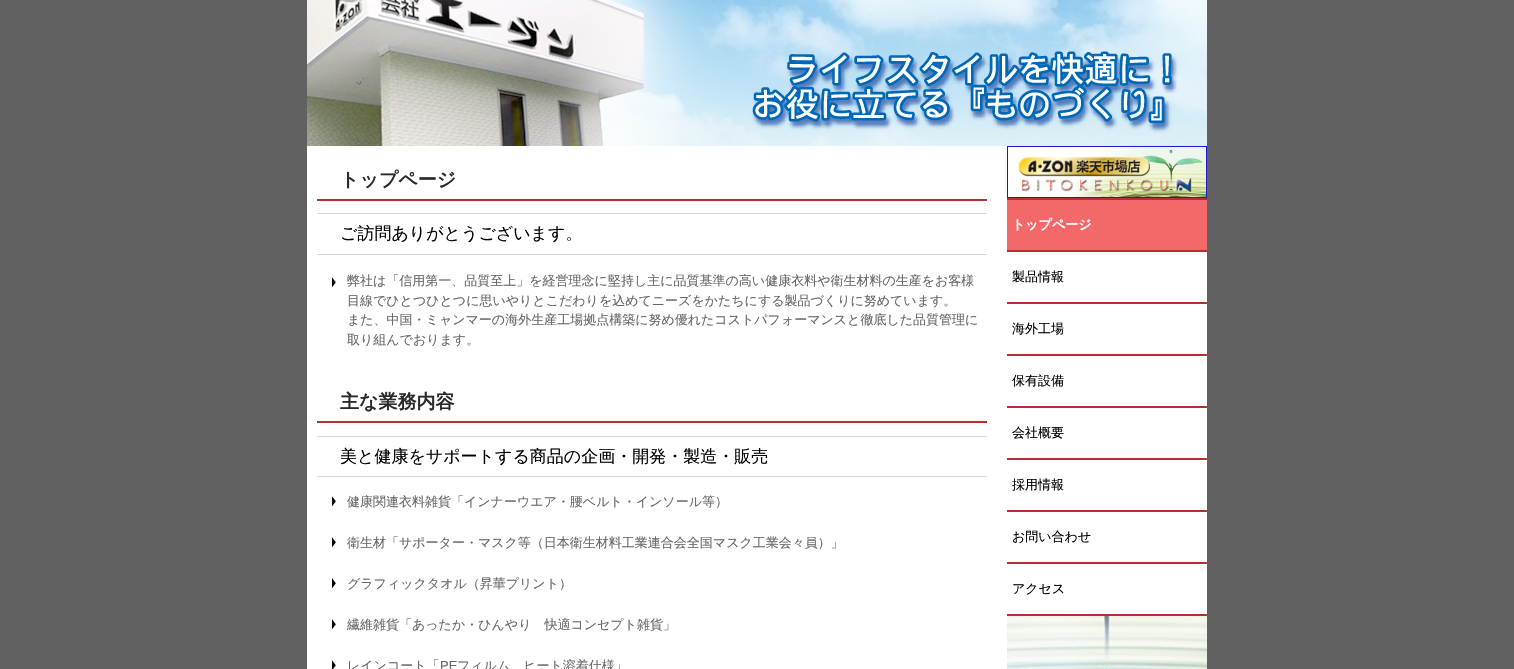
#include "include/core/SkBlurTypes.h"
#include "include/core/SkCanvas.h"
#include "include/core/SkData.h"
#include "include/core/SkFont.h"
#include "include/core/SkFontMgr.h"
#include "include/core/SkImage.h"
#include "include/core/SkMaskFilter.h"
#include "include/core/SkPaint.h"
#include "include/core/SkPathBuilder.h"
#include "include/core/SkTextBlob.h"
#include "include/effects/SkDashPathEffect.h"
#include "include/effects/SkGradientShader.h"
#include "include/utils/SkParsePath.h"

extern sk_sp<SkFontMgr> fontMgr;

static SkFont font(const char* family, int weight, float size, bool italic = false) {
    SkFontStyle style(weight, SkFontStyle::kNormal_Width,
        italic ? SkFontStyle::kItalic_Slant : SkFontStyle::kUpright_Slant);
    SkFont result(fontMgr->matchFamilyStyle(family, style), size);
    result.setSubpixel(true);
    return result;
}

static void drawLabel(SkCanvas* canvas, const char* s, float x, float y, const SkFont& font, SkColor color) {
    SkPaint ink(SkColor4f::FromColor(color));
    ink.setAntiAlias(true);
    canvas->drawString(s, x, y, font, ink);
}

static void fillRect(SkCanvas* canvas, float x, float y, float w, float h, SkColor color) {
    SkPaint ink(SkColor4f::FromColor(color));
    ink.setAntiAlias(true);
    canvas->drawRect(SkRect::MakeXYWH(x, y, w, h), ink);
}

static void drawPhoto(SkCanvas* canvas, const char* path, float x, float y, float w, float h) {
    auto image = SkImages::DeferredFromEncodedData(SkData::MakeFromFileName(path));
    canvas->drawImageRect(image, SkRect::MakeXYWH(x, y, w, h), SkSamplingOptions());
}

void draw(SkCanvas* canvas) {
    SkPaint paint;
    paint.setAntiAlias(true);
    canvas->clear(0xFF616161);
    fillRect(canvas, 307, 146, 711, 523, 0xFFFFFFFF);
    drawPhoto(canvas, "assets/img1.png", 307, 0, 900, 146);
    fillRect(canvas, 317, 199, 670, 2, 0xFFB43030);
    SkFont font1 = font("WenQuanYi Zen Hei", 700, 19);
    drawLabel(canvas, "トップページ", 340, 186, font1, 0xFF2A2A2A);
    fillRect(canvas, 317, 213, 670, 1, 0xFFD5D5D5);
    fillRect(canvas, 317, 254, 670, 1, 0xFFD5D5D5);
    SkFont font2 = font("WenQuanYi Zen Hei", 500, 17);
    drawLabel(canvas, "ご訪問ありがとうございます。", 340, 239, font2, 0xFF000000);
    drawPhoto(canvas, "assets/img2.png", 332, 277, 4, 11);
    SkFont font3 = font("WenQuanYi Zen Hei", 500, 13);
    drawLabel(canvas, "弊社は「信用第一、品質至上」を経営理念に堅持し主に品質基準の高い健康衣料や衛生材料の生産をお客様", 347, 285, font3, 0xFF666666);
    drawLabel(canvas, "目線でひとつひとつに思いやりとこだわりを込めてニーズをかたちにする製品づくりに努めています。", 347, 305, font3, 0xFF666666);
    drawLabel(canvas, "また、中国・ミャンマーの海外生産工場拠点構築に努め優れたコストパフォーマンスと徹底した品質管理に", 347, 324, font3, 0xFF666666);
    drawLabel(canvas, "取り組んでおります。", 347, 344, font3, 0xFF666666);
    fillRect(canvas, 317, 421, 670, 2, 0xFFB43030);
    drawLabel(canvas, "主な業務内容", 340, 408, font1, 0xFF2A2A2A);
    fillRect(canvas, 317, 436, 670, 1, 0xFFD5D5D5);
    fillRect(canvas, 317, 476, 670, 1, 0xFFD5D5D5);
    drawLabel(canvas, "美と健康をサポートする商品の企画・開発・製造・販売", 340, 462, font2, 0xFF000000);
    drawPhoto(canvas, "assets/img2.png", 332, 496, 4, 11);
    drawLabel(canvas, "健康関連衣料雑貨「インナーウエア・腰ベルト・インソール等）", 347, 506, font3, 0xFF666666);
    drawPhoto(canvas, "assets/img2.png", 332, 537, 4, 11);
    drawLabel(canvas, "衛生材「サポーター・マスク等（日本衛生材料工業連合会全国マスク工業会々員）」", 347, 547, font3, 0xFF666666);
    drawPhoto(canvas, "assets/img2.png", 332, 578, 4, 11);
    drawLabel(canvas, "グラフィックタオル（昇華プリント）", 347, 588, font3, 0xFF666666);
    drawPhoto(canvas, "assets/img2.png", 332, 619, 4, 11);
    drawLabel(canvas, "繊維雑貨「あったか・ひんやり　快適コンセプト雑貨」", 347, 629, font3, 0xFF666666);
    drawPhoto(canvas, "assets/img3.png", 332, 660, 4, 9);
    drawLabel(canvas, "レインコート「", 347, 670, font3, 0xFF666666);
    SkFont font4 = font("Liberation Sans", 400, 13);
    drawLabel(canvas, "PE", 440, 670, font4, 0xFF666666);
    drawLabel(canvas, "フィルム　ヒート溶着仕様」", 457, 670, font3, 0xFF666666);
    paint.setStroke(true);
    paint.setStrokeWidth(1);
    paint.setColor(0xFF1B1BD1);
    canvas->drawRect(SkRect::MakeXYWH(1007.5f, 146.5f, 199, 51), paint);
    drawPhoto(canvas, "assets/img4.png", 1018, 147, 188, 50);
    drawPhoto(canvas, "assets/img5.png", 1007, 616, 200, 53);
    fillRect(canvas, 1007, 198, 200, 2, 0xFFB23134);
    fillRect(canvas, 1007, 200, 200, 50, 0xFFF36969);
    fillRect(canvas, 1007, 250, 200, 2, 0xFFB23134);
    SkFont font5 = font("WenQuanYi Zen Hei", 700, 13);
    drawLabel(canvas, "トップページ", 1012, 229, font5, 0xFFFFFFFF);
    fillRect(canvas, 1018, 252, 189, 50, 0xFFFFFFFF);
    fillRect(canvas, 1007, 302, 200, 2, 0xFFB23134);
    drawLabel(canvas, "製品情報", 1012, 281, font3, 0xFF000000);
    fillRect(canvas, 1018, 304, 189, 50, 0xFFFFFFFF);
    fillRect(canvas, 1007, 354, 200, 2, 0xFFB23134);
    drawLabel(canvas, "海外工場", 1012, 333, font3, 0xFF000000);
    fillRect(canvas, 1018, 356, 189, 50, 0xFFFFFFFF);
    fillRect(canvas, 1007, 406, 200, 2, 0xFFB23134);
    drawLabel(canvas, "保有設備", 1012, 385, font3, 0xFF000000);
    fillRect(canvas, 1018, 408, 189, 50, 0xFFFFFFFF);
    fillRect(canvas, 1007, 458, 200, 2, 0xFFB23134);
    drawLabel(canvas, "会社概要", 1012, 437, font3, 0xFF000000);
    fillRect(canvas, 1018, 460, 189, 50, 0xFFFFFFFF);
    fillRect(canvas, 1007, 510, 200, 2, 0xFFB23134);
    drawLabel(canvas, "採用情報", 1012, 489, font3, 0xFF000000);
    fillRect(canvas, 1018, 512, 189, 50, 0xFFFFFFFF);
    fillRect(canvas, 1007, 562, 200, 2, 0xFFB23134);
    drawLabel(canvas, "お問い合わせ", 1012, 541, font3, 0xFF000000);
    fillRect(canvas, 1018, 564, 189, 50, 0xFFFFFFFF);
    fillRect(canvas, 1007, 614, 200, 2, 0xFFB23134);
    drawLabel(canvas, "アクセス", 1012, 593, font3, 0xFF000000);
}
